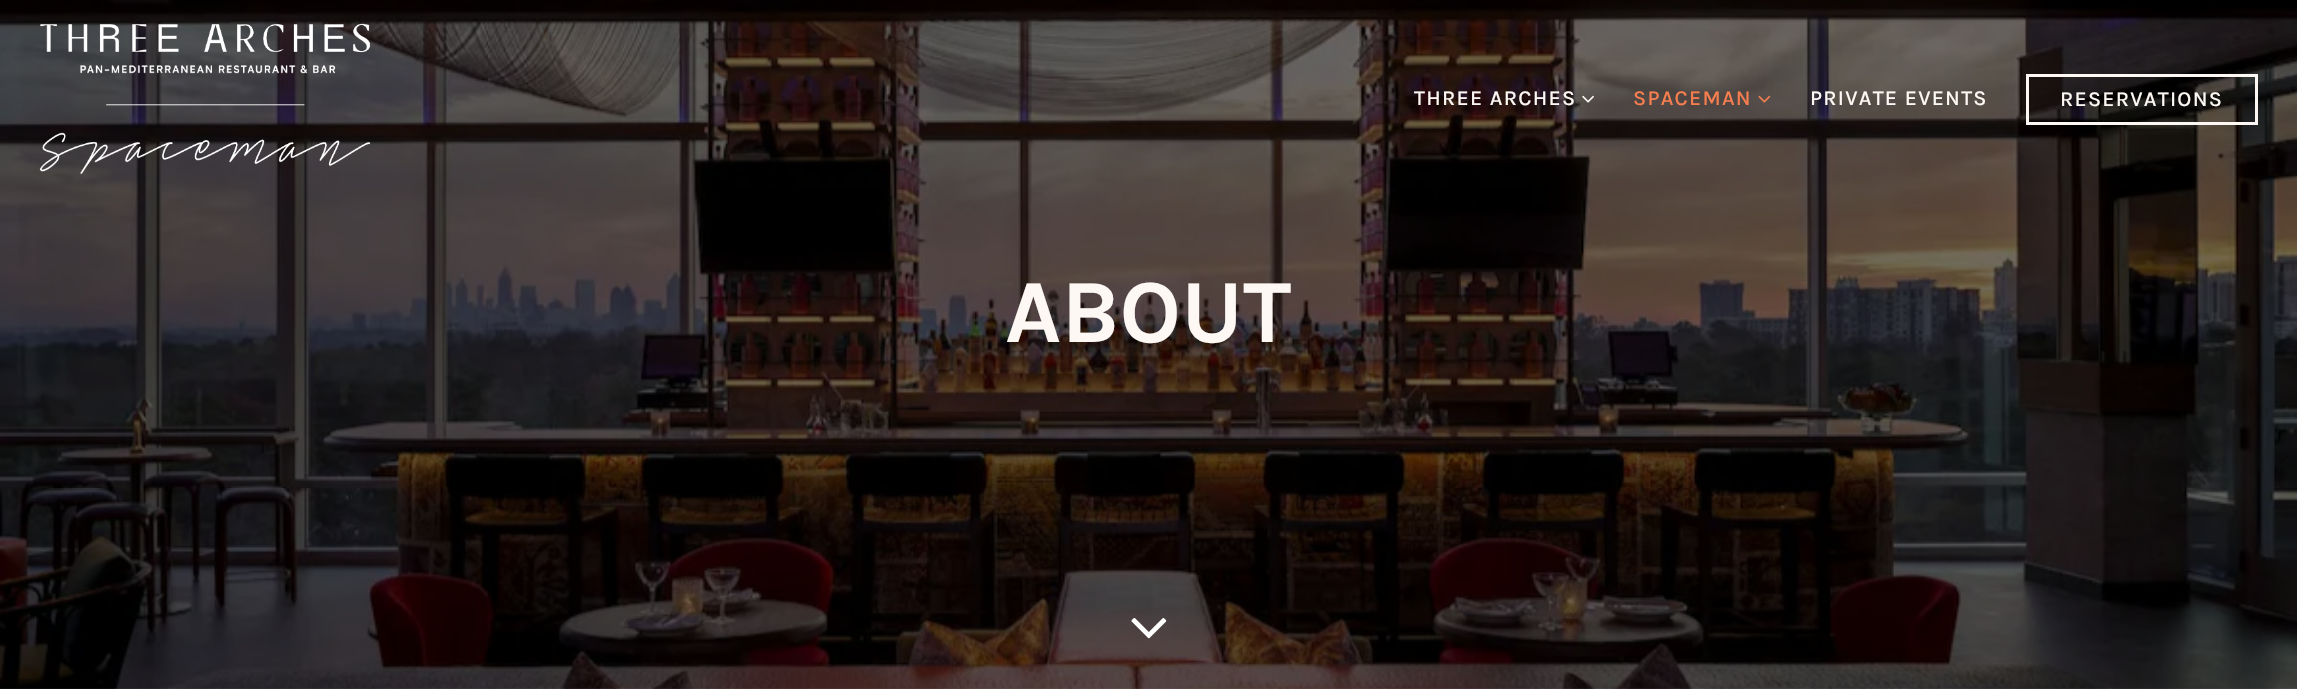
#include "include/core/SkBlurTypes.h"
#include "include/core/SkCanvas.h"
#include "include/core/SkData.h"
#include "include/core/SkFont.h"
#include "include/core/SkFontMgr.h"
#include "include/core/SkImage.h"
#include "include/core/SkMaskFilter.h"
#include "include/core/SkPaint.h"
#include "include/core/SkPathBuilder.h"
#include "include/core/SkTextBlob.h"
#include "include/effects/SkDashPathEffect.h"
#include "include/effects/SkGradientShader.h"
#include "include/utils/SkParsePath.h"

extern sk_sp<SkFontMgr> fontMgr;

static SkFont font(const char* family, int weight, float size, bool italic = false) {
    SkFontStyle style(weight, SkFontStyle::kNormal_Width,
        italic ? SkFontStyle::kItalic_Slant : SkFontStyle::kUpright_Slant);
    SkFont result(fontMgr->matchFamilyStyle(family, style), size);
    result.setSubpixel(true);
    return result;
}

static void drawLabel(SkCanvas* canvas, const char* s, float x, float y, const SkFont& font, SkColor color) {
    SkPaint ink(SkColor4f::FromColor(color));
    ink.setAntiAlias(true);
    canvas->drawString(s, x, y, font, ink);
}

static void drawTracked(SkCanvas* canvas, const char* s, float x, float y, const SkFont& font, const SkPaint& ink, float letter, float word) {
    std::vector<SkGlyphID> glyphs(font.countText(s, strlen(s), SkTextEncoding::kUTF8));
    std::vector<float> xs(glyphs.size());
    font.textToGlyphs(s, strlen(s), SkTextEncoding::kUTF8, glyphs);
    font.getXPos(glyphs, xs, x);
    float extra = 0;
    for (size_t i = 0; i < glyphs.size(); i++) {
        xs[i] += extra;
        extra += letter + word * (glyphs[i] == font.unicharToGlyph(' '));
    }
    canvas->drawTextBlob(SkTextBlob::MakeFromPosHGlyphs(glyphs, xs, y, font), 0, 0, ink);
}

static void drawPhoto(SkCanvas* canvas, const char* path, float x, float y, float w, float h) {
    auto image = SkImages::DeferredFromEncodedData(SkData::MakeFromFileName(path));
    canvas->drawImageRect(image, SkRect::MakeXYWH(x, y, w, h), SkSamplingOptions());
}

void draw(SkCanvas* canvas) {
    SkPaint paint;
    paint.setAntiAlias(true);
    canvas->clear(0xFFFFFFFF);
    drawPhoto(canvas, "assets/img4.png", 0, 0, 2297, 689);
    drawPhoto(canvas, "assets/img1.png", 39, 23, 331, 151);
    SkFont font1 = font("Karla", 500, 21.25f);
    paint.setColor(0xFFFDF8F3);
    drawTracked(canvas, "THREE ARCHES", 1414, 105, font1, paint, 1.25f, 0);
    drawPhoto(canvas, "assets/img2.png", 1582, 95, 12, 8);
    paint.setColor(0xFFF87E4F);
    drawTracked(canvas, "SPACEMAN", 1633, 105, font1, paint, 1.25f, 0);
    drawPhoto(canvas, "assets/img3.png", 1758, 95, 13, 8);
    paint.setColor(0xFFFDF8F3);
    drawTracked(canvas, "PRIVATE EVENTS", 1810, 105, font1, paint, 1.25f, 0);
    paint.setStroke(true);
    paint.setStrokeWidth(3);
    canvas->drawRect(SkRect::MakeXYWH(2027.5f, 75.5f, 229, 48), paint);
    paint.setStroke(false);
    drawTracked(canvas, "RESERVATIONS", 2060, 106, font1, paint, 1.25f, 0);
    SkFont font2 = font("Karla", 700, 90);
    drawLabel(canvas, "ABOUT", 1005, 342, font2, 0xFFFDF8F3);
    drawPhoto(canvas, "assets/img5.png", 1131, 618, 36, 21);
}
